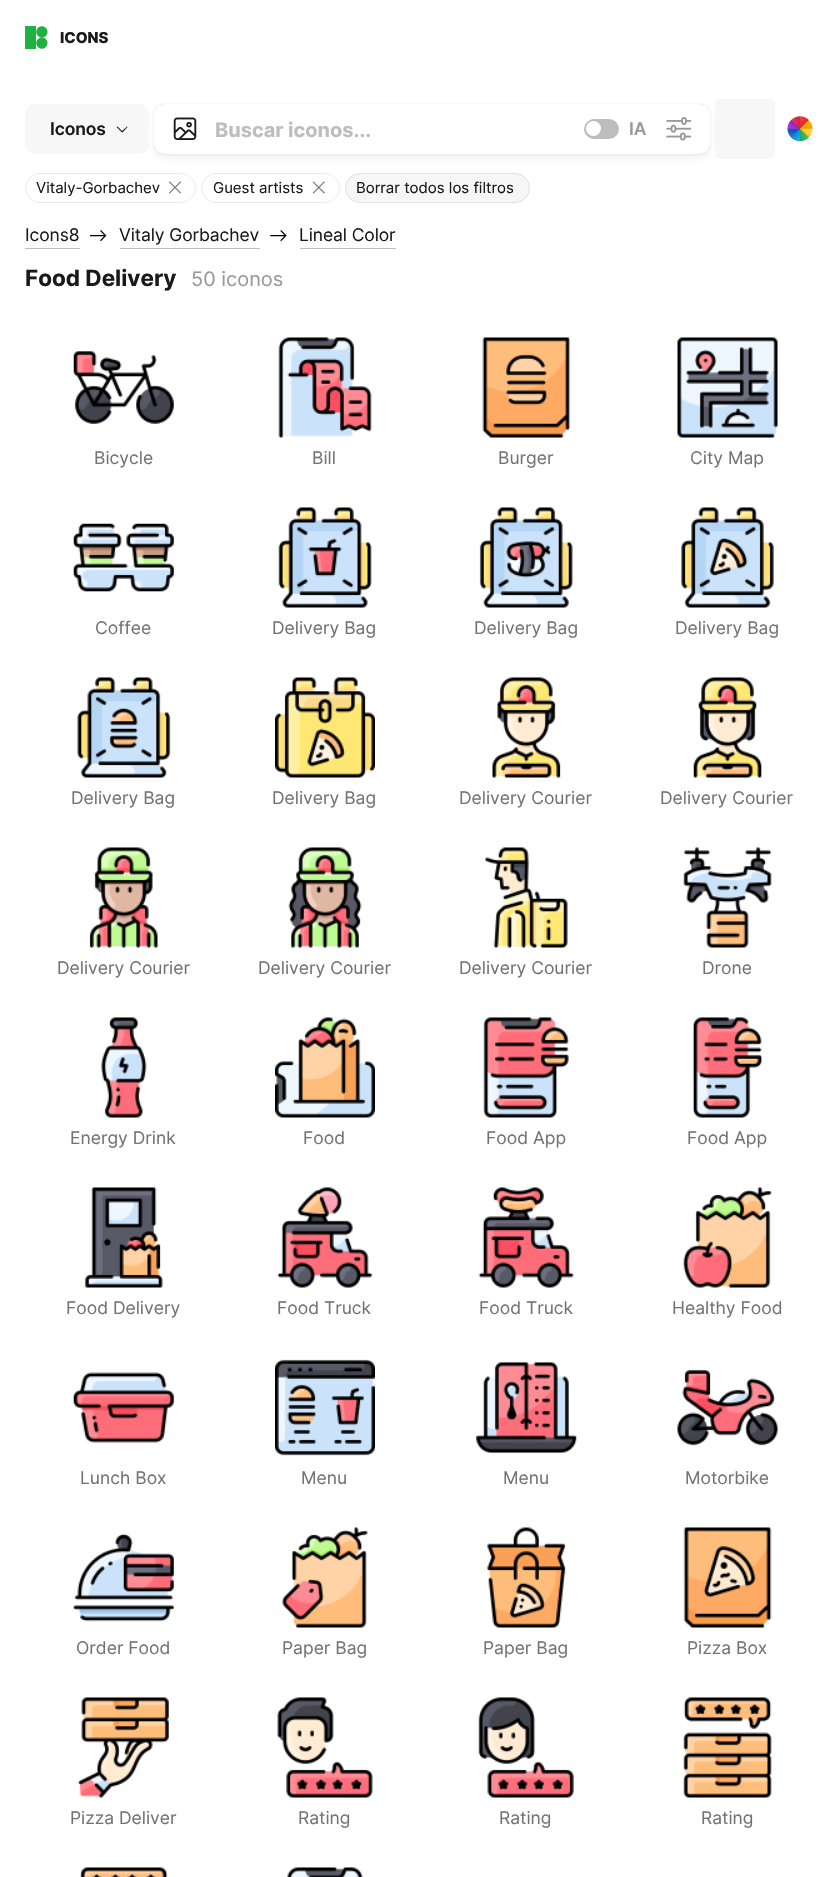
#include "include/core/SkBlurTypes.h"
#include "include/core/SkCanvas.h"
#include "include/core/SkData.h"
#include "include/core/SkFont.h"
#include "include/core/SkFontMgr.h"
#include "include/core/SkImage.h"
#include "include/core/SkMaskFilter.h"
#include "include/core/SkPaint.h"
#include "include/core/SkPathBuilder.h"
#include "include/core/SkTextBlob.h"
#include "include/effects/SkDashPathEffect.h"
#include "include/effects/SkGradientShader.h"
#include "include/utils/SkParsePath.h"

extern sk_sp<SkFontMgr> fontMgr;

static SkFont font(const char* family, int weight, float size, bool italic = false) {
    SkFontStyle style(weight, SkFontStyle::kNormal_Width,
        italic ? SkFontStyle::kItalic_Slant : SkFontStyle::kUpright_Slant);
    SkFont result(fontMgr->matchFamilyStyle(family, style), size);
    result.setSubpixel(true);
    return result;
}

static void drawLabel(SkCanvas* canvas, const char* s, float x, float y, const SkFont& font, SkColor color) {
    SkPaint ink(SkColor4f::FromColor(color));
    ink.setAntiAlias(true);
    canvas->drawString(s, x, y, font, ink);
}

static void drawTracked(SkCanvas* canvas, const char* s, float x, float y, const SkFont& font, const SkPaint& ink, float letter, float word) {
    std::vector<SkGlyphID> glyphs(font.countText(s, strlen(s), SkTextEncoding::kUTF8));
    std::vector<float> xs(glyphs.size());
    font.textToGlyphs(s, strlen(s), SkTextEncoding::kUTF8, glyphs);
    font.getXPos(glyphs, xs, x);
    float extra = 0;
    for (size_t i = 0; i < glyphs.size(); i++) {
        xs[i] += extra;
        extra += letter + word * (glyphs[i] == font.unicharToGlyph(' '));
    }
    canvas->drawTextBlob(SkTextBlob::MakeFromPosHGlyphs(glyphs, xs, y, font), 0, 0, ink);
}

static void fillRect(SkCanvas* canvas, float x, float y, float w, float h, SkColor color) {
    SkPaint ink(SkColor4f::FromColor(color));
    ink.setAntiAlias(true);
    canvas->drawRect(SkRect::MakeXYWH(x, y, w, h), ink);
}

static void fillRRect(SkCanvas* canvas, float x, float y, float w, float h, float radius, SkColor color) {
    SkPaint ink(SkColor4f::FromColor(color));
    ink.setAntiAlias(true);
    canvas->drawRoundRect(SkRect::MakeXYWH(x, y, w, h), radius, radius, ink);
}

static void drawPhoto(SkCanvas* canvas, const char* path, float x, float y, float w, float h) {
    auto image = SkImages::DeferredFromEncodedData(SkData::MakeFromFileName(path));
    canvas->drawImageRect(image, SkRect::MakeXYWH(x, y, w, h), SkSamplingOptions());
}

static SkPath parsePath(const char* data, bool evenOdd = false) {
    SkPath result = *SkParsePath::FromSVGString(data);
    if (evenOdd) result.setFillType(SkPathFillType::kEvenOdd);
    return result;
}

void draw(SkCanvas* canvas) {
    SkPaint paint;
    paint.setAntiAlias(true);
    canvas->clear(0xFFFFFFFF);
    drawPhoto(canvas, "assets/img1.png", 25, 26, 23, 23);
    SkFont font1 = font("Inter", 800, 15);
    drawLabel(canvas, "ICONS", 60, 43, font1, 0xFF1A1A1A);
    fillRRect(canvas, 715, 99, 60, 60, 5, 0xFFF7F7F7);
    paint.setColor(0x26606060);
    paint.setMaskFilter(SkMaskFilter::MakeBlur(kNormal_SkBlurStyle, 5));
    canvas->drawRoundRect(SkRect::MakeXYWH(156, 111, 552, 45), 8, 8, paint);
    paint.setMaskFilter(nullptr);
    fillRRect(canvas, 25, 104, 124, 50, 10, 0xFFF7F7F7);
    SkFont font2 = font("Inter", 600, 17.5f);
    paint.setColor(0xFF1A1A1A);
    drawTracked(canvas, "Iconos", 50, 135, font2, paint, -0.1f, 0);
    canvas->drawPath(parsePath("M117.5 126.5L122.5 131.5L122 132.5L116.5 127Z"), paint);
    canvas->drawPath(parsePath("M121.5 131.5L127 126.5L127.5 127L122.5 132.5Z"), paint);
    paint.setColor(0x4F606060);
    paint.setMaskFilter(SkMaskFilter::MakeBlur(kNormal_SkBlurStyle, 0.5f));
    canvas->drawRoundRect(SkRect::MakeXYWH(154, 104, 556, 50), 10, 10, paint);
    paint.setMaskFilter(nullptr);
    fillRRect(canvas, 154, 104, 556, 50, 10, 0xFFFFFFFF);
    drawPhoto(canvas, "assets/img2.png", 173, 117, 24, 23);
    SkFont font3 = font("Inter", 700, 20);
    drawLabel(canvas, "Buscar iconos...", 215, 137, font3, 0xFFBDBDBD);
    fillRRect(canvas, 584, 119, 35, 20, 10, 0xFFBDBDBD);
    paint.setColor(0xFFFFFFFF);
    canvas->drawCircle(593.5f, 128.5f, 7.5f, paint);
    drawLabel(canvas, "IA", 629, 135, font2, 0xFF999999);
    drawPhoto(canvas, "assets/img3.png", 666, 117, 26, 24);
    drawPhoto(canvas, "assets/img4.png", 787, 116, 26, 26);
    paint.setStroke(true);
    paint.setStrokeWidth(1);
    paint.setColor(0xFFEBEBEB);
    canvas->drawRoundRect(SkRect::MakeXYWH(25.5f, 173.5f, 170, 29), 14.5f, 14.5f, paint);
    SkFont font4 = font("Inter", 400, 15);
    drawLabel(canvas, "Vitaly-Gorbachev", 36, 193, font4, 0xFF1A1A1A);
    drawPhoto(canvas, "assets/img5.png", 169, 181, 12, 13);
    canvas->drawRoundRect(SkRect::MakeXYWH(201.5f, 173.5f, 138, 29), 14.5f, 14.5f, paint);
    drawLabel(canvas, "Guest artists", 213, 193, font4, 0xFF1A1A1A);
    drawPhoto(canvas, "assets/img6.png", 312, 181, 13, 13);
    fillRRect(canvas, 345, 173, 185, 30, 15, 0xFFF6F6F6);
    paint.setColor(0x14000000);
    canvas->drawRoundRect(SkRect::MakeXYWH(345.5f, 173.5f, 184, 29), 14.5f, 14.5f, paint);
    drawLabel(canvas, "Borrar todos los filtros", 356, 193, font4, 0xFF1A1A1A);
    fillRect(canvas, 25, 248, 55, 1, 0xFFBDBDBD);
    SkFont font5 = font("Inter", 400, 17.5f);
    paint.setStroke(false);
    paint.setColor(0xFF1A1A1A);
    drawTracked(canvas, "Icons8", 25, 241, font5, paint, -0.1f, 0);
    drawPhoto(canvas, "assets/img7.png", 90, 230, 17, 12);
    fillRect(canvas, 120, 248, 140, 1, 0xFFBDBDBD);
    drawTracked(canvas, "Vitaly Gorbachev", 119, 241, font5, paint, -0.1f, 0);
    drawPhoto(canvas, "assets/img8.png", 270, 230, 17, 12);
    fillRect(canvas, 300, 248, 96, 1, 0xFFBDBDBD);
    drawTracked(canvas, "Lineal Color", 299, 241, font5, paint, -0.1f, 0);
    SkFont font6 = font("Inter", 700, 22.5f);
    drawLabel(canvas, "Food Delivery", 25, 286, font6, 0xFF1A1A1A);
    SkFont font7 = font("Inter", 400, 20);
    drawLabel(canvas, "50 iconos", 191, 286, font7, 0xFF999999);
    drawPhoto(canvas, "assets/img9.png", 73, 351, 101, 73);
    drawLabel(canvas, "Bicycle", 94, 464, font5, 0xFF737373);
    drawPhoto(canvas, "assets/img10.png", 278, 337, 94, 101);
    drawLabel(canvas, "Bill", 312, 464, font5, 0xFF737373);
    drawPhoto(canvas, "assets/img11.png", 482, 337, 89, 101);
    drawLabel(canvas, "Burger", 498, 464, font5, 0xFF737373);
    drawPhoto(canvas, "assets/img12.png", 677, 337, 101, 101);
    drawLabel(canvas, "City Map", 690, 464, font5, 0xFF737373);
    drawPhoto(canvas, "assets/img13.png", 73, 523, 101, 69);
    drawLabel(canvas, "Coffee", 95, 634, font5, 0xFF737373);
    drawPhoto(canvas, "assets/img14.png", 278, 507, 94, 101);
    drawLabel(canvas, "Delivery Bag", 272, 634, font5, 0xFF737373);
    drawPhoto(canvas, "assets/img15.png", 479, 507, 94, 101);
    drawLabel(canvas, "Delivery Bag", 474, 634, font5, 0xFF737373);
    drawPhoto(canvas, "assets/img16.png", 681, 507, 93, 101);
    drawLabel(canvas, "Delivery Bag", 675, 634, font5, 0xFF737373);
    drawPhoto(canvas, "assets/img17.png", 77, 677, 94, 101);
    drawLabel(canvas, "Delivery Bag", 71, 804, font5, 0xFF737373);
    drawPhoto(canvas, "assets/img18.png", 275, 677, 100, 101);
    drawLabel(canvas, "Delivery Bag", 272, 804, font5, 0xFF737373);
    drawPhoto(canvas, "assets/img19.png", 492, 677, 69, 101);
    drawLabel(canvas, "Delivery Courier", 459, 804, font5, 0xFF737373);
    drawPhoto(canvas, "assets/img20.png", 693, 677, 69, 101);
    drawLabel(canvas, "Delivery Courier", 660, 804, font5, 0xFF737373);
    drawPhoto(canvas, "assets/img21.png", 89, 847, 69, 101);
    drawLabel(canvas, "Delivery Courier", 57, 974, font5, 0xFF737373);
    drawPhoto(canvas, "assets/img22.png", 288, 847, 74, 101);
    drawLabel(canvas, "Delivery Courier", 258, 974, font5, 0xFF737373);
    drawPhoto(canvas, "assets/img23.png", 484, 847, 84, 101);
    drawLabel(canvas, "Delivery Courier", 459, 974, font5, 0xFF737373);
    drawPhoto(canvas, "assets/img24.png", 683, 847, 89, 101);
    drawLabel(canvas, "Drone", 702, 974, font5, 0xFF737373);
    drawPhoto(canvas, "assets/img25.png", 101, 1017, 46, 101);
    drawLabel(canvas, "Energy Drink", 70, 1144, font5, 0xFF737373);
    drawPhoto(canvas, "assets/img26.png", 275, 1017, 100, 101);
    drawLabel(canvas, "Food", 303, 1144, font5, 0xFF737373);
    drawPhoto(canvas, "assets/img27.png", 483, 1017, 86, 101);
    drawLabel(canvas, "Food App", 486, 1144, font5, 0xFF737373);
    drawPhoto(canvas, "assets/img28.png", 692, 1017, 71, 101);
    drawLabel(canvas, "Food App", 687, 1144, font5, 0xFF737373);
    drawPhoto(canvas, "assets/img29.png", 84, 1187, 79, 101);
    drawLabel(canvas, "Food Delivery", 66, 1314, font5, 0xFF737373);
    drawPhoto(canvas, "assets/img30.png", 277, 1187, 96, 101);
    drawLabel(canvas, "Food Truck", 277, 1314, font5, 0xFF737373);
    drawPhoto(canvas, "assets/img31.png", 478, 1187, 96, 101);
    drawLabel(canvas, "Food Truck", 479, 1314, font5, 0xFF737373);
    drawPhoto(canvas, "assets/img32.png", 683, 1187, 89, 101);
    drawLabel(canvas, "Healthy Food", 672, 1314, font5, 0xFF737373);
    drawPhoto(canvas, "assets/img33.png", 73, 1372, 101, 71);
    drawLabel(canvas, "Lunch Box", 80, 1484, font5, 0xFF737373);
    drawPhoto(canvas, "assets/img34.png", 275, 1359, 100, 97);
    drawLabel(canvas, "Menu", 301, 1484, font5, 0xFF737373);
    drawPhoto(canvas, "assets/img35.png", 476, 1361, 101, 93);
    drawLabel(canvas, "Menu", 503, 1484, font5, 0xFF737373);
    drawPhoto(canvas, "assets/img36.png", 677, 1369, 101, 77);
    drawLabel(canvas, "Motorbike", 685, 1484, font5, 0xFF737373);
    drawPhoto(canvas, "assets/img37.png", 73, 1533, 101, 89);
    drawLabel(canvas, "Order Food", 76, 1654, font5, 0xFF737373);
    drawPhoto(canvas, "assets/img38.png", 282, 1527, 86, 101);
    drawLabel(canvas, "Paper Bag", 282, 1654, font5, 0xFF737373);
    drawPhoto(canvas, "assets/img39.png", 487, 1527, 79, 101);
    drawLabel(canvas, "Paper Bag", 483, 1654, font5, 0xFF737373);
    drawPhoto(canvas, "assets/img40.png", 683, 1527, 89, 101);
    drawLabel(canvas, "Pizza Box", 687, 1654, font5, 0xFF737373);
    drawPhoto(canvas, "assets/img41.png", 78, 1697, 91, 101);
    drawLabel(canvas, "Pizza Deliver", 70, 1824, font5, 0xFF737373);
    drawPhoto(canvas, "assets/img42.png", 277, 1697, 96, 101);
    drawLabel(canvas, "Rating", 298, 1824, font5, 0xFF737373);
    drawPhoto(canvas, "assets/img43.png", 478, 1697, 96, 101);
    drawLabel(canvas, "Rating", 499, 1824, font5, 0xFF737373);
    drawPhoto(canvas, "assets/img44.png", 683, 1697, 89, 101);
    drawLabel(canvas, "Rating", 701, 1824, font5, 0xFF737373);
    drawPhoto(canvas, "assets/img45.png", 80, 1867, 88, 10);
    drawPhoto(canvas, "assets/img46.png", 287, 1867, 76, 10);
}
